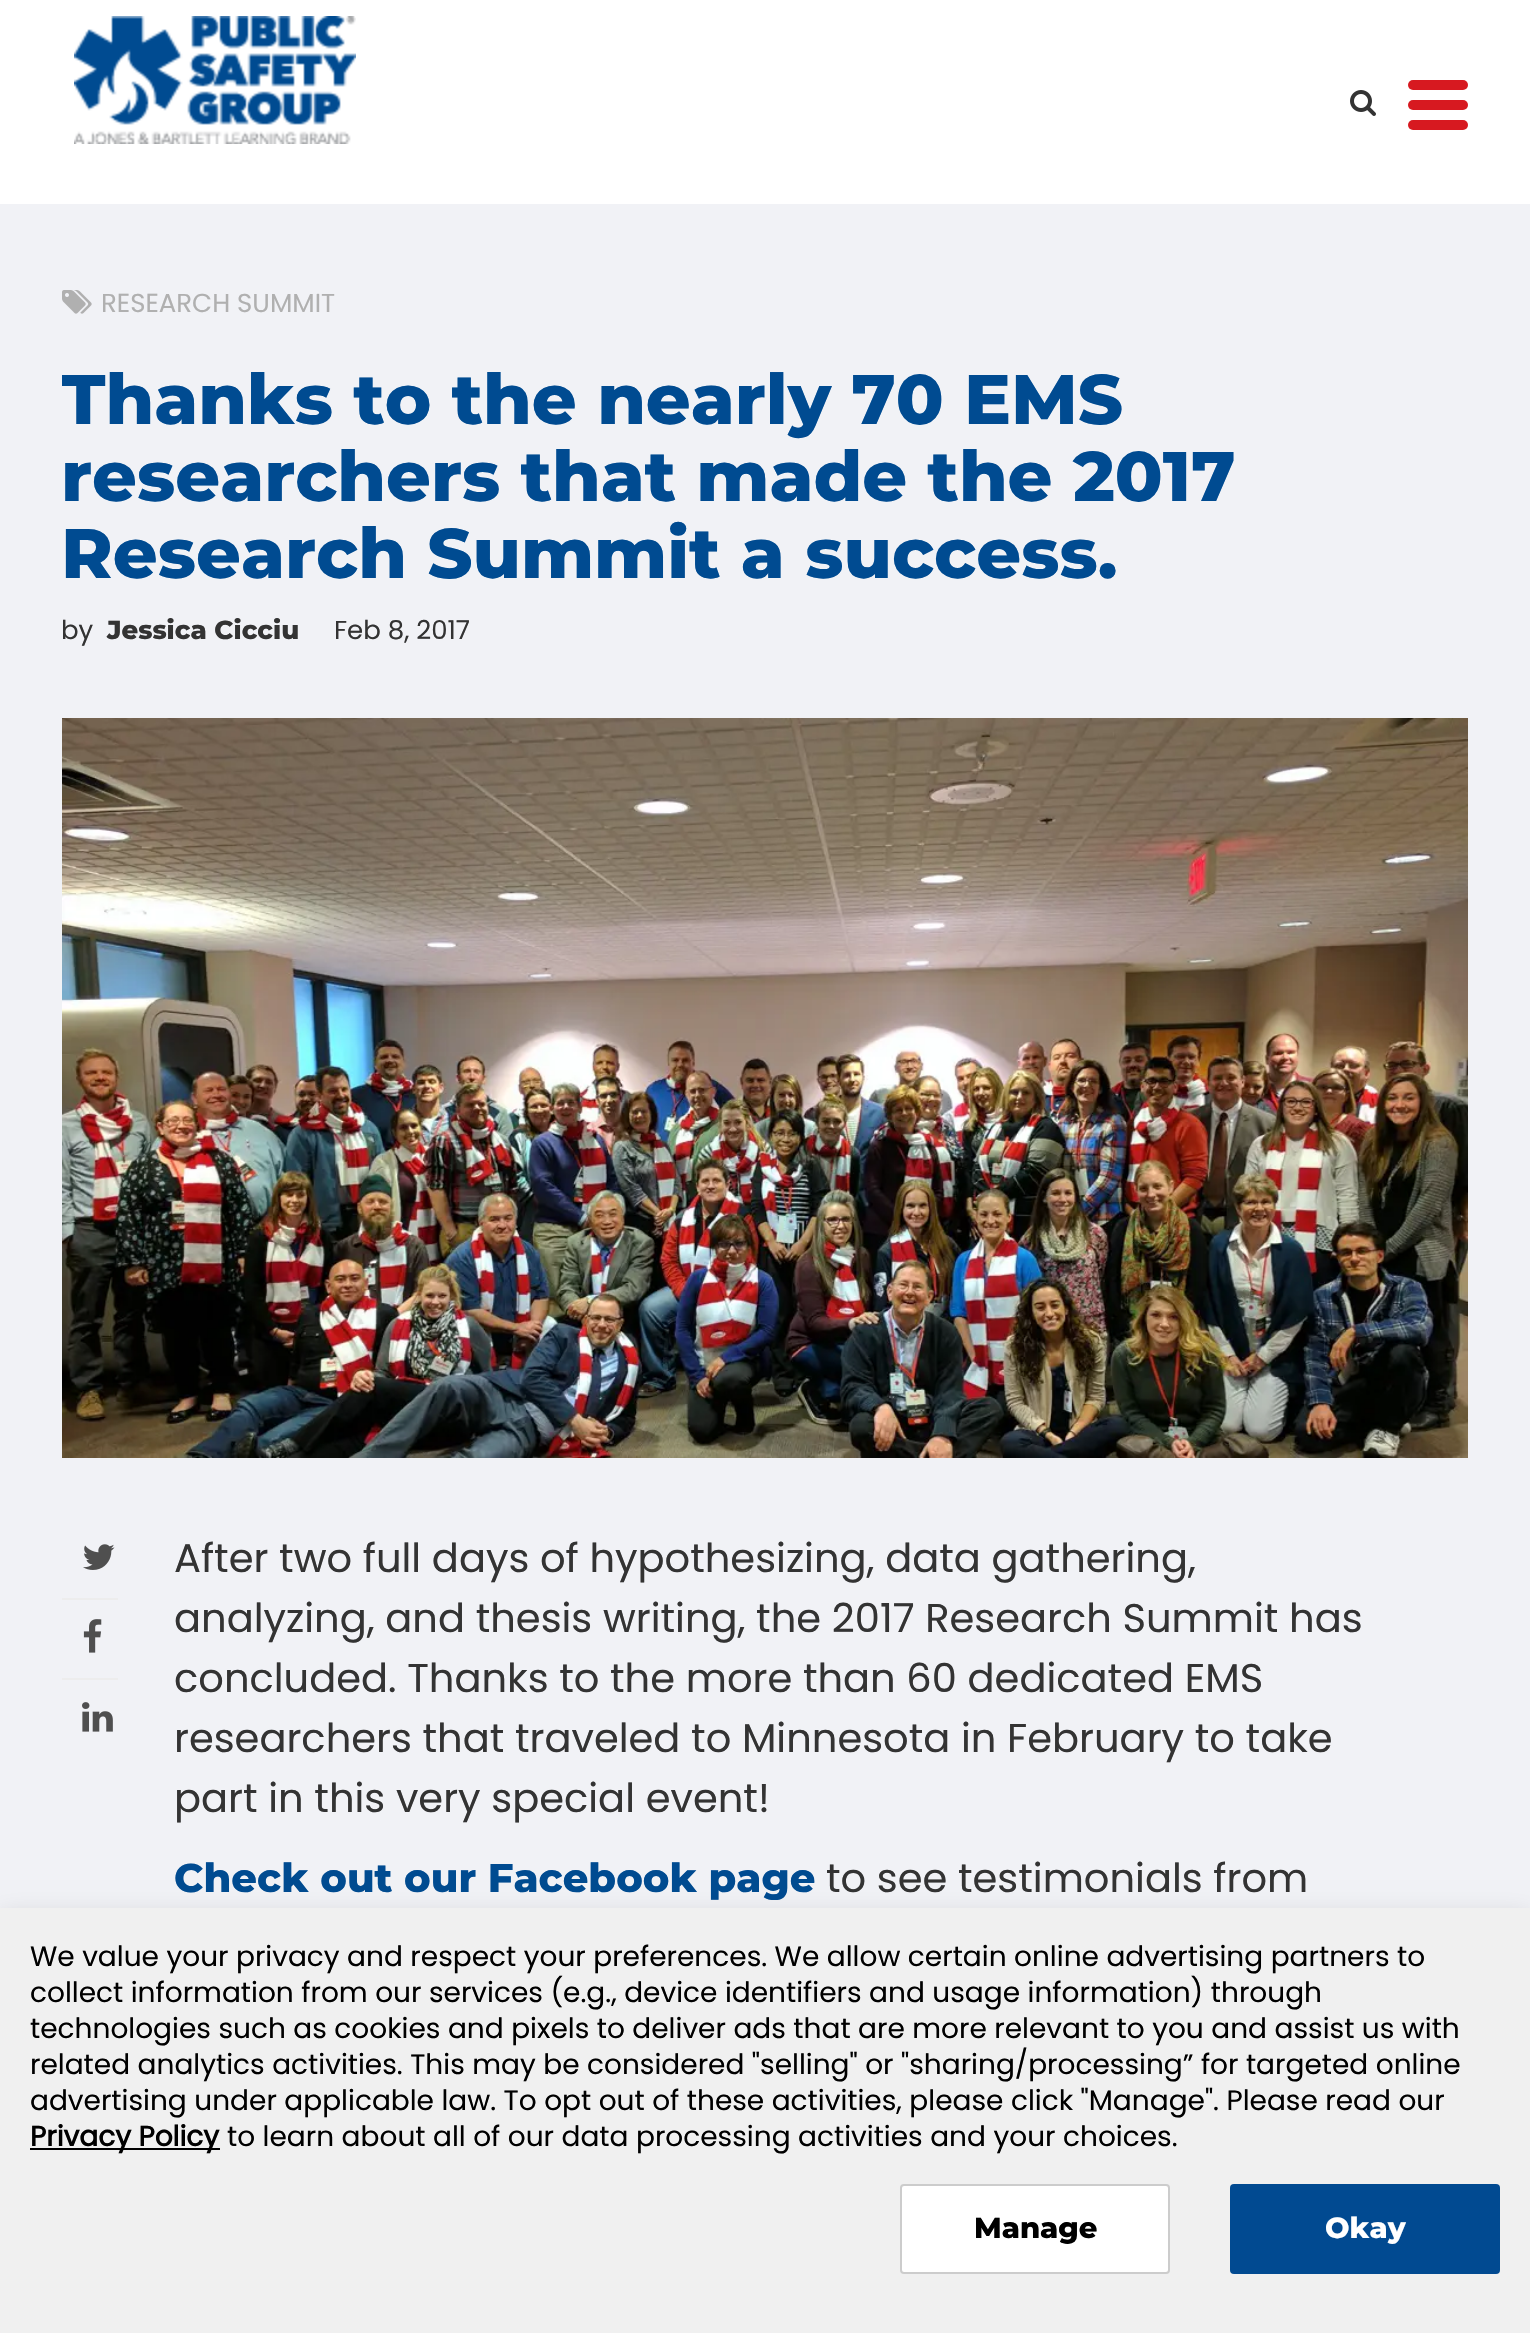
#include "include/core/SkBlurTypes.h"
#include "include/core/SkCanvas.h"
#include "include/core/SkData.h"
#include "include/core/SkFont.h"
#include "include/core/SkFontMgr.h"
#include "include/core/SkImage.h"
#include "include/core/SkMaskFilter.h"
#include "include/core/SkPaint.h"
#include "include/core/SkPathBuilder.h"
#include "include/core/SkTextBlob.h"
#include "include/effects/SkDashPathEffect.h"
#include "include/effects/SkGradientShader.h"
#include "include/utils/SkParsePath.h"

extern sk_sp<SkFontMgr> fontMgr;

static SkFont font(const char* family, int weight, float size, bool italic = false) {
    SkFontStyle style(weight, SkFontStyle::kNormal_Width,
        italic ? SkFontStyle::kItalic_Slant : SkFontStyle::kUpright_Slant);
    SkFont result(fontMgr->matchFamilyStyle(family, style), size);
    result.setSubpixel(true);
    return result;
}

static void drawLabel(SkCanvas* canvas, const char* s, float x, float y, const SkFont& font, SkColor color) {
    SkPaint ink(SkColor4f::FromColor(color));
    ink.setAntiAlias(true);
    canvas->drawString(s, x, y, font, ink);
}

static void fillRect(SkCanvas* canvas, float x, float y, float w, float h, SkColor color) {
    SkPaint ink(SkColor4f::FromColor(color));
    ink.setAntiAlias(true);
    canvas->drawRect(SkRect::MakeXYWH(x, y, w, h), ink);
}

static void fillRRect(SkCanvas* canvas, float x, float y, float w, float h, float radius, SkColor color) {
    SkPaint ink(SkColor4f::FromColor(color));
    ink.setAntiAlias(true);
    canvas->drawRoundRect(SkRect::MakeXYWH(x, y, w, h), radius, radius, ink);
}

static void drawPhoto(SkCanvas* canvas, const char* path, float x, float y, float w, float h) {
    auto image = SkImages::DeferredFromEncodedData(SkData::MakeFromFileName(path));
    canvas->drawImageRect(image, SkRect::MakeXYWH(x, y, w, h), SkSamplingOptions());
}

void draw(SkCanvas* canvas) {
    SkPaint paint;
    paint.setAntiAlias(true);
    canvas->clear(0xFFF1F2F6);
    fillRect(canvas, 0, 0, 1530, 204, 0xFFFFFFFF);
    drawPhoto(canvas, "assets/img1.png", 74, 16, 282, 128);
    drawPhoto(canvas, "assets/img2.png", 1350, 90, 26, 26);
    fillRRect(canvas, 1408, 80, 60, 10, 5, 0xFFD71920);
    fillRRect(canvas, 1408, 100, 60, 10, 5, 0xFFD71920);
    fillRRect(canvas, 1408, 120, 60, 10, 5, 0xFFD71920);
    drawPhoto(canvas, "assets/img3.png", 62, 290, 30, 24);
    SkFont font1 = font("Poppins", 400, 26);
    drawLabel(canvas, "RESEARCH SUMMIT", 101, 312, font1, 0xFFB0B0B0);
    canvas->save();
    canvas->clipRect(SkRect::MakeXYWH(62, 224, 1406, 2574));
    SkFont font2 = font("Montserrat", 100, 70);
    drawLabel(canvas, "Thanks to the nearly 70 EMS", 61, 424, font2, 0xFF004B91);
    canvas->restore();
    drawLabel(canvas, "researchers that made the 2017", 61, 501, font2, 0xFF004B91);
    drawLabel(canvas, "Research Summit a success.", 61, 578, font2, 0xFF004B91);
    drawLabel(canvas, "by", 61, 639, font1, 0xFF333333);
    SkFont font3 = font("Montserrat", 100, 26);
    drawLabel(canvas, "Jessica Cicciu", 107, 639, font3, 0xFF333333);
    drawLabel(canvas, "Feb 8, 2017", 334, 639, font1, 0xFF333333);
    drawPhoto(canvas, "assets/img4.png", 62, 718, 1406, 740);
    fillRect(canvas, 62, 1598, 56, 2, 0xFFEDEDED);
    drawPhoto(canvas, "assets/img5.png", 83, 1544, 32, 26);
    fillRect(canvas, 62, 1678, 56, 2, 0xFFEDEDED);
    drawPhoto(canvas, "assets/img6.png", 83, 1619, 19, 34);
    drawPhoto(canvas, "assets/img7.png", 82, 1702, 31, 30);
    SkFont font4 = font("Poppins", 400, 40);
    drawLabel(canvas, "After two full days of hypothesizing, data gathering,", 174, 1572, font4, 0xFF333333);
    drawLabel(canvas, "analyzing, and thesis writing, the 2017 Research Summit has", 174, 1632, font4, 0xFF333333);
    drawLabel(canvas, "concluded. Thanks to the more than 60 dedicated EMS", 174, 1692, font4, 0xFF333333);
    drawLabel(canvas, "researchers that traveled to Minnesota in February to take", 174, 1752, font4, 0xFF333333);
    drawLabel(canvas, "part in this very special event!", 174, 1812, font4, 0xFF333333);
    SkFont font5 = font("Montserrat", 100, 40);
    drawLabel(canvas, "Check out our Facebook page", 174, 1892, font5, 0xFF004B91);
    drawLabel(canvas, "to see testimonials from", 826, 1892, font4, 0xFF333333);
    paint.setColor(0x26000000);
    paint.setMaskFilter(SkMaskFilter::MakeBlur(kNormal_SkBlurStyle, 12));
    canvas->drawRect(SkRect::MakeXYWH(0, 1916, 1530, 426), paint);
    paint.setMaskFilter(nullptr);
    fillRect(canvas, 0, 1908, 1530, 425, 0xFFF0F0F0);
    SkFont font6 = font("Poppins", 400, 28);
    drawLabel(canvas, "We value your privacy and respect your preferences. We allow certain online advertising partners to", 30, 1966, font6, 0xFF000000);
    drawLabel(canvas, "collect information from our services (e.g., device identifiers and usage information) through", 30, 2002, font6, 0xFF000000);
    drawLabel(canvas, "technologies such as cookies and pixels to deliver ads that are more relevant to you and assist us with", 30, 2038, font6, 0xFF000000);
    drawLabel(canvas, "related analytics activities. This may be considered \"selling\" or \"sharing/processing” for targeted online", 30, 2074, font6, 0xFF000000);
    drawLabel(canvas, "advertising under applicable law. To opt out of these activities, please click \"Manage\". Please read our", 30, 2110, font6, 0xFF000000);
    fillRect(canvas, 30, 2148, 190, 2, 0xFF000000);
    SkFont font7 = font("Poppins", 700, 28);
    drawLabel(canvas, "Privacy Policy", 30, 2146, font7, 0xFF000000);
    drawLabel(canvas, "to learn about all of our data processing activities and your choices.", 227, 2146, font6, 0xFF000000);
    paint.setColor(0xFFFFFFFF);
    canvas->drawRoundRect(SkRect::MakeXYWH(901, 2185, 268, 88), 3, 3, paint);
    paint.setStroke(true);
    paint.setStrokeWidth(2);
    paint.setColor(0xFFCCCCCC);
    canvas->drawRoundRect(SkRect::MakeXYWH(901, 2185, 268, 88), 3, 3, paint);
    SkFont font8 = font("Montserrat", 100, 29);
    drawLabel(canvas, "Manage", 974, 2238, font8, 0xFF000000);
    fillRRect(canvas, 1230, 2184, 270, 90, 4, 0xFF014A91);
    drawLabel(canvas, "Okay", 1325, 2238, font8, 0xFFFFFFFF);
}
